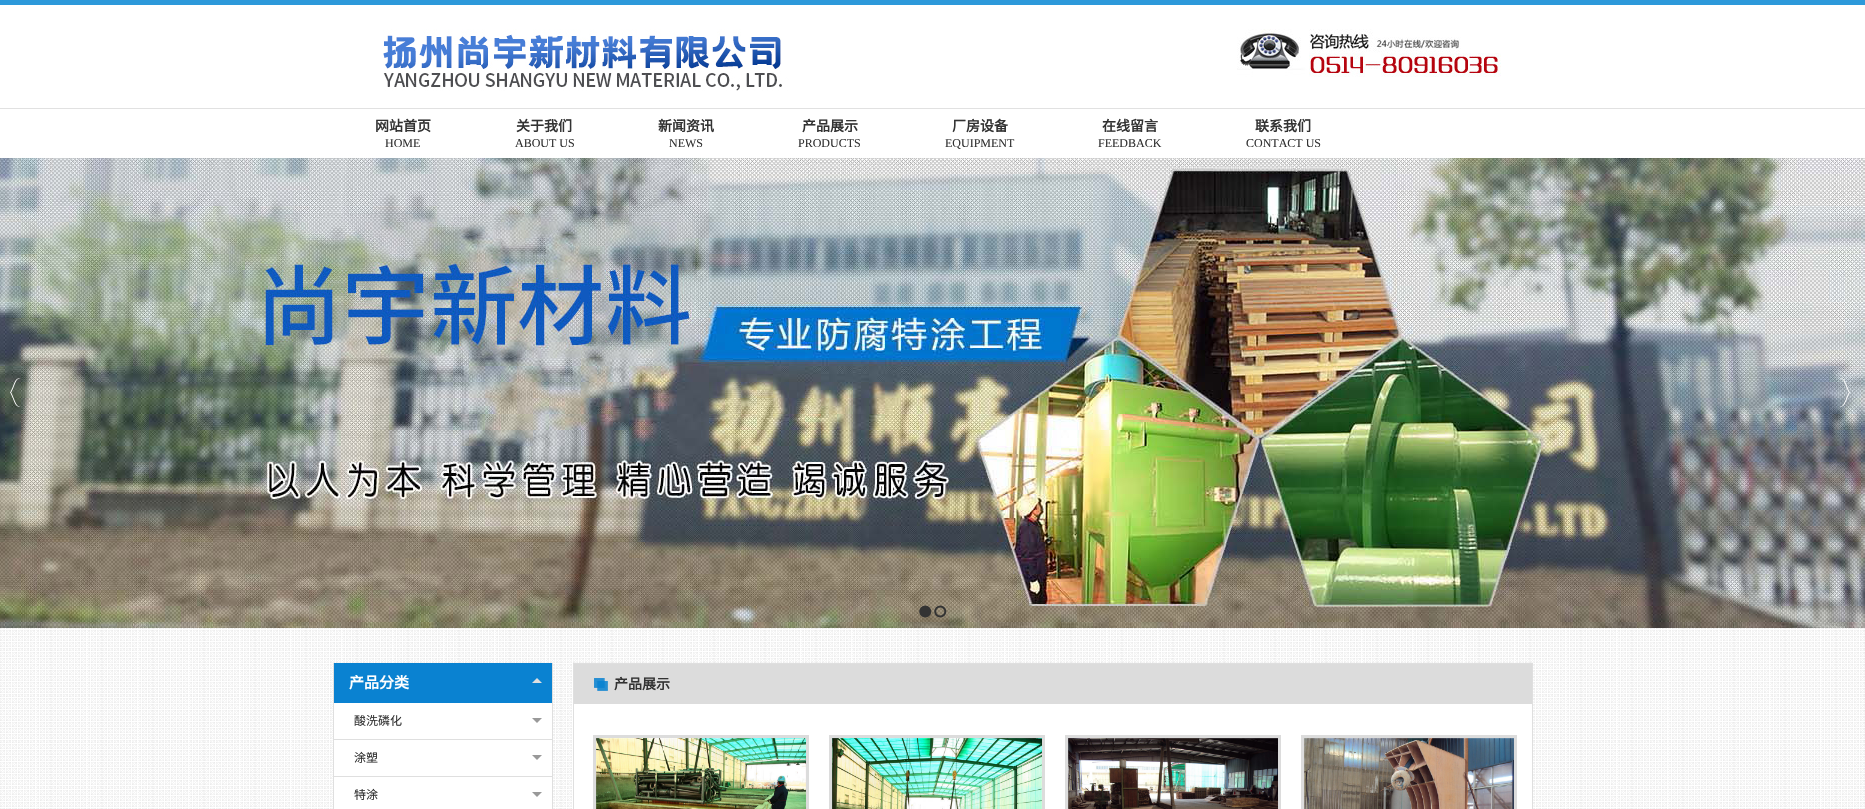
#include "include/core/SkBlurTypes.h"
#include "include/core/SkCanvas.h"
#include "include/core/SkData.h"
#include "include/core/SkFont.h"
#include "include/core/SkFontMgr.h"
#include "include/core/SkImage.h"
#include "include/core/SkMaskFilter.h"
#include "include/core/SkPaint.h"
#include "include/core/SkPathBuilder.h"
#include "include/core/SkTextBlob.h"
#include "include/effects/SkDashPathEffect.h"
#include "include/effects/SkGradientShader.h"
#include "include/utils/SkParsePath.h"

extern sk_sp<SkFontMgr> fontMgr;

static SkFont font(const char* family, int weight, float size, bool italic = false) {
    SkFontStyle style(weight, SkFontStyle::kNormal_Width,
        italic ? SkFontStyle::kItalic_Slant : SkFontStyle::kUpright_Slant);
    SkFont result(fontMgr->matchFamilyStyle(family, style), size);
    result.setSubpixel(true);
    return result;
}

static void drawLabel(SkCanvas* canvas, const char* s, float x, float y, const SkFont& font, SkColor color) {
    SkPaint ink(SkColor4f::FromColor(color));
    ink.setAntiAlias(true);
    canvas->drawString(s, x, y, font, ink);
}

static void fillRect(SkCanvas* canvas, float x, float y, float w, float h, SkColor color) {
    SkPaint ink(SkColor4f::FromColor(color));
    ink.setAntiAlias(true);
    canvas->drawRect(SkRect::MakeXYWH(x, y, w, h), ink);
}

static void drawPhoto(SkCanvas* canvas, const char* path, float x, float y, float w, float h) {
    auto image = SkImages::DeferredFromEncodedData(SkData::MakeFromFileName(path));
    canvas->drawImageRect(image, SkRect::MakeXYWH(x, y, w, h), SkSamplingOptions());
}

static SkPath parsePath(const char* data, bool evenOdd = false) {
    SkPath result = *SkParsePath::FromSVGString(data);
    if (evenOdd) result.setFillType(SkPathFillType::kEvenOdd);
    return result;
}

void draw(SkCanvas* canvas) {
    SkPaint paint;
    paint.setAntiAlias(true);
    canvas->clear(0xFFFFFFFF);
    drawPhoto(canvas, "assets/img1.png", 0, 628, 1865, 181);
    fillRect(canvas, 0, 0, 1865, 5, 0xFF2D99DA);
    drawPhoto(canvas, "assets/img2.png", 383, 29, 1118, 62);
    fillRect(canvas, 0, 108, 1865, 1, 0xFFE1E1E1);
    SkFont font1 = font("Noto Sans CJK SC", 700, 14);
    drawLabel(canvas, "网站首页", 375, 131, font1, 0xFF333333);
    SkFont font2 = font("Liberation Serif", 400, 12);
    drawLabel(canvas, "HOME", 385, 147, font2, 0xFF333333);
    drawLabel(canvas, "关于我们", 516, 131, font1, 0xFF333333);
    drawLabel(canvas, "ABOUT US", 515, 147, font2, 0xFF333333);
    drawLabel(canvas, "新闻资讯", 658, 131, font1, 0xFF333333);
    drawLabel(canvas, "NEWS", 669, 147, font2, 0xFF333333);
    drawLabel(canvas, "产品展示", 802, 131, font1, 0xFF333333);
    drawLabel(canvas, "PRODUCTS", 798, 147, font2, 0xFF333333);
    drawLabel(canvas, "厂房设备", 952, 131, font1, 0xFF333333);
    drawLabel(canvas, "EQUIPMENT", 945, 147, font2, 0xFF333333);
    drawLabel(canvas, "在线留言", 1102, 131, font1, 0xFF333333);
    drawLabel(canvas, "FEEDBACK", 1098, 147, font2, 0xFF333333);
    drawLabel(canvas, "联系我们", 1255, 131, font1, 0xFF333333);
    drawLabel(canvas, "CONTACT US", 1246, 147, font2, 0xFF333333);
    drawPhoto(canvas, "assets/img3.png", 0, 158, 1865, 470);
    drawPhoto(canvas, "assets/img4.png", 919, 605, 13, 13);
    drawPhoto(canvas, "assets/img5.png", 934, 605, 13, 13);
    drawPhoto(canvas, "assets/img6.png", 10, 378, 11, 29);
    drawPhoto(canvas, "assets/img7.png", 1839, 378, 11, 29);
    fillRect(canvas, 334, 704, 218, 105, 0xFFFFFFFF);
    fillRect(canvas, 552, 663, 1, 146, 0xFFDFDFDF);
    fillRect(canvas, 333, 663, 1, 146, 0xFFDFDFDF);
    fillRect(canvas, 334, 663, 218, 40, 0xFF0A82D1);
    SkFont font3 = font("Noto Sans CJK SC", 700, 15);
    drawLabel(canvas, "产品分类", 349, 688, font3, 0xFFFFFFFF);
    paint.setColor(0xFFDFDFDF);
    canvas->drawPath(parsePath("M542 683H532L537 678Z"), paint);
    fillRect(canvas, 334, 739, 218, 1, 0xFFDFDFDF);
    SkFont font4 = font("Noto Sans CJK SC", 400, 12);
    drawLabel(canvas, "酸洗磷化", 354, 725, font4, 0xFF333333);
    paint.setColor(0xFF999999);
    canvas->drawPath(parsePath("M532 718H542L537 723Z"), paint);
    fillRect(canvas, 334, 776, 218, 1, 0xFFDFDFDF);
    drawLabel(canvas, "涂塑", 354, 762, font4, 0xFF333333);
    canvas->drawPath(parsePath("M532 755H542L537 760Z"), paint);
    drawLabel(canvas, "特涂", 354, 799, font4, 0xFF333333);
    canvas->drawPath(parsePath("M532 792H542L537 797Z"), paint);
    fillRect(canvas, 574, 704, 958, 105, 0xFFFFFFFF);
    paint.setStroke(true);
    paint.setStrokeWidth(1);
    paint.setColor(0xFFDFDFDF);
    canvas->drawRect(SkRect::MakeXYWH(573.5f, 663.5f, 959, 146), paint);
    fillRect(canvas, 574, 664, 958, 40, 0xFFDCDCDC);
    drawPhoto(canvas, "assets/img8.png", 594, 678, 15, 13);
    drawLabel(canvas, "产品展示", 614, 689, font1, 0xFF333333);
    paint.setStrokeWidth(3);
    paint.setColor(0xFFDCDCDC);
    canvas->drawRect(SkRect::MakeXYWH(594.5f, 736.5f, 213, 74), paint);
    drawPhoto(canvas, "assets/img9.png", 596, 738, 210, 71);
    canvas->drawRect(SkRect::MakeXYWH(830.5f, 736.5f, 213, 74), paint);
    drawPhoto(canvas, "assets/img10.png", 832, 738, 210, 71);
    canvas->drawRect(SkRect::MakeXYWH(1066.5f, 736.5f, 213, 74), paint);
    drawPhoto(canvas, "assets/img11.png", 1068, 738, 210, 71);
    canvas->drawRect(SkRect::MakeXYWH(1302.5f, 736.5f, 213, 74), paint);
    drawPhoto(canvas, "assets/img12.png", 1304, 738, 210, 71);
}
